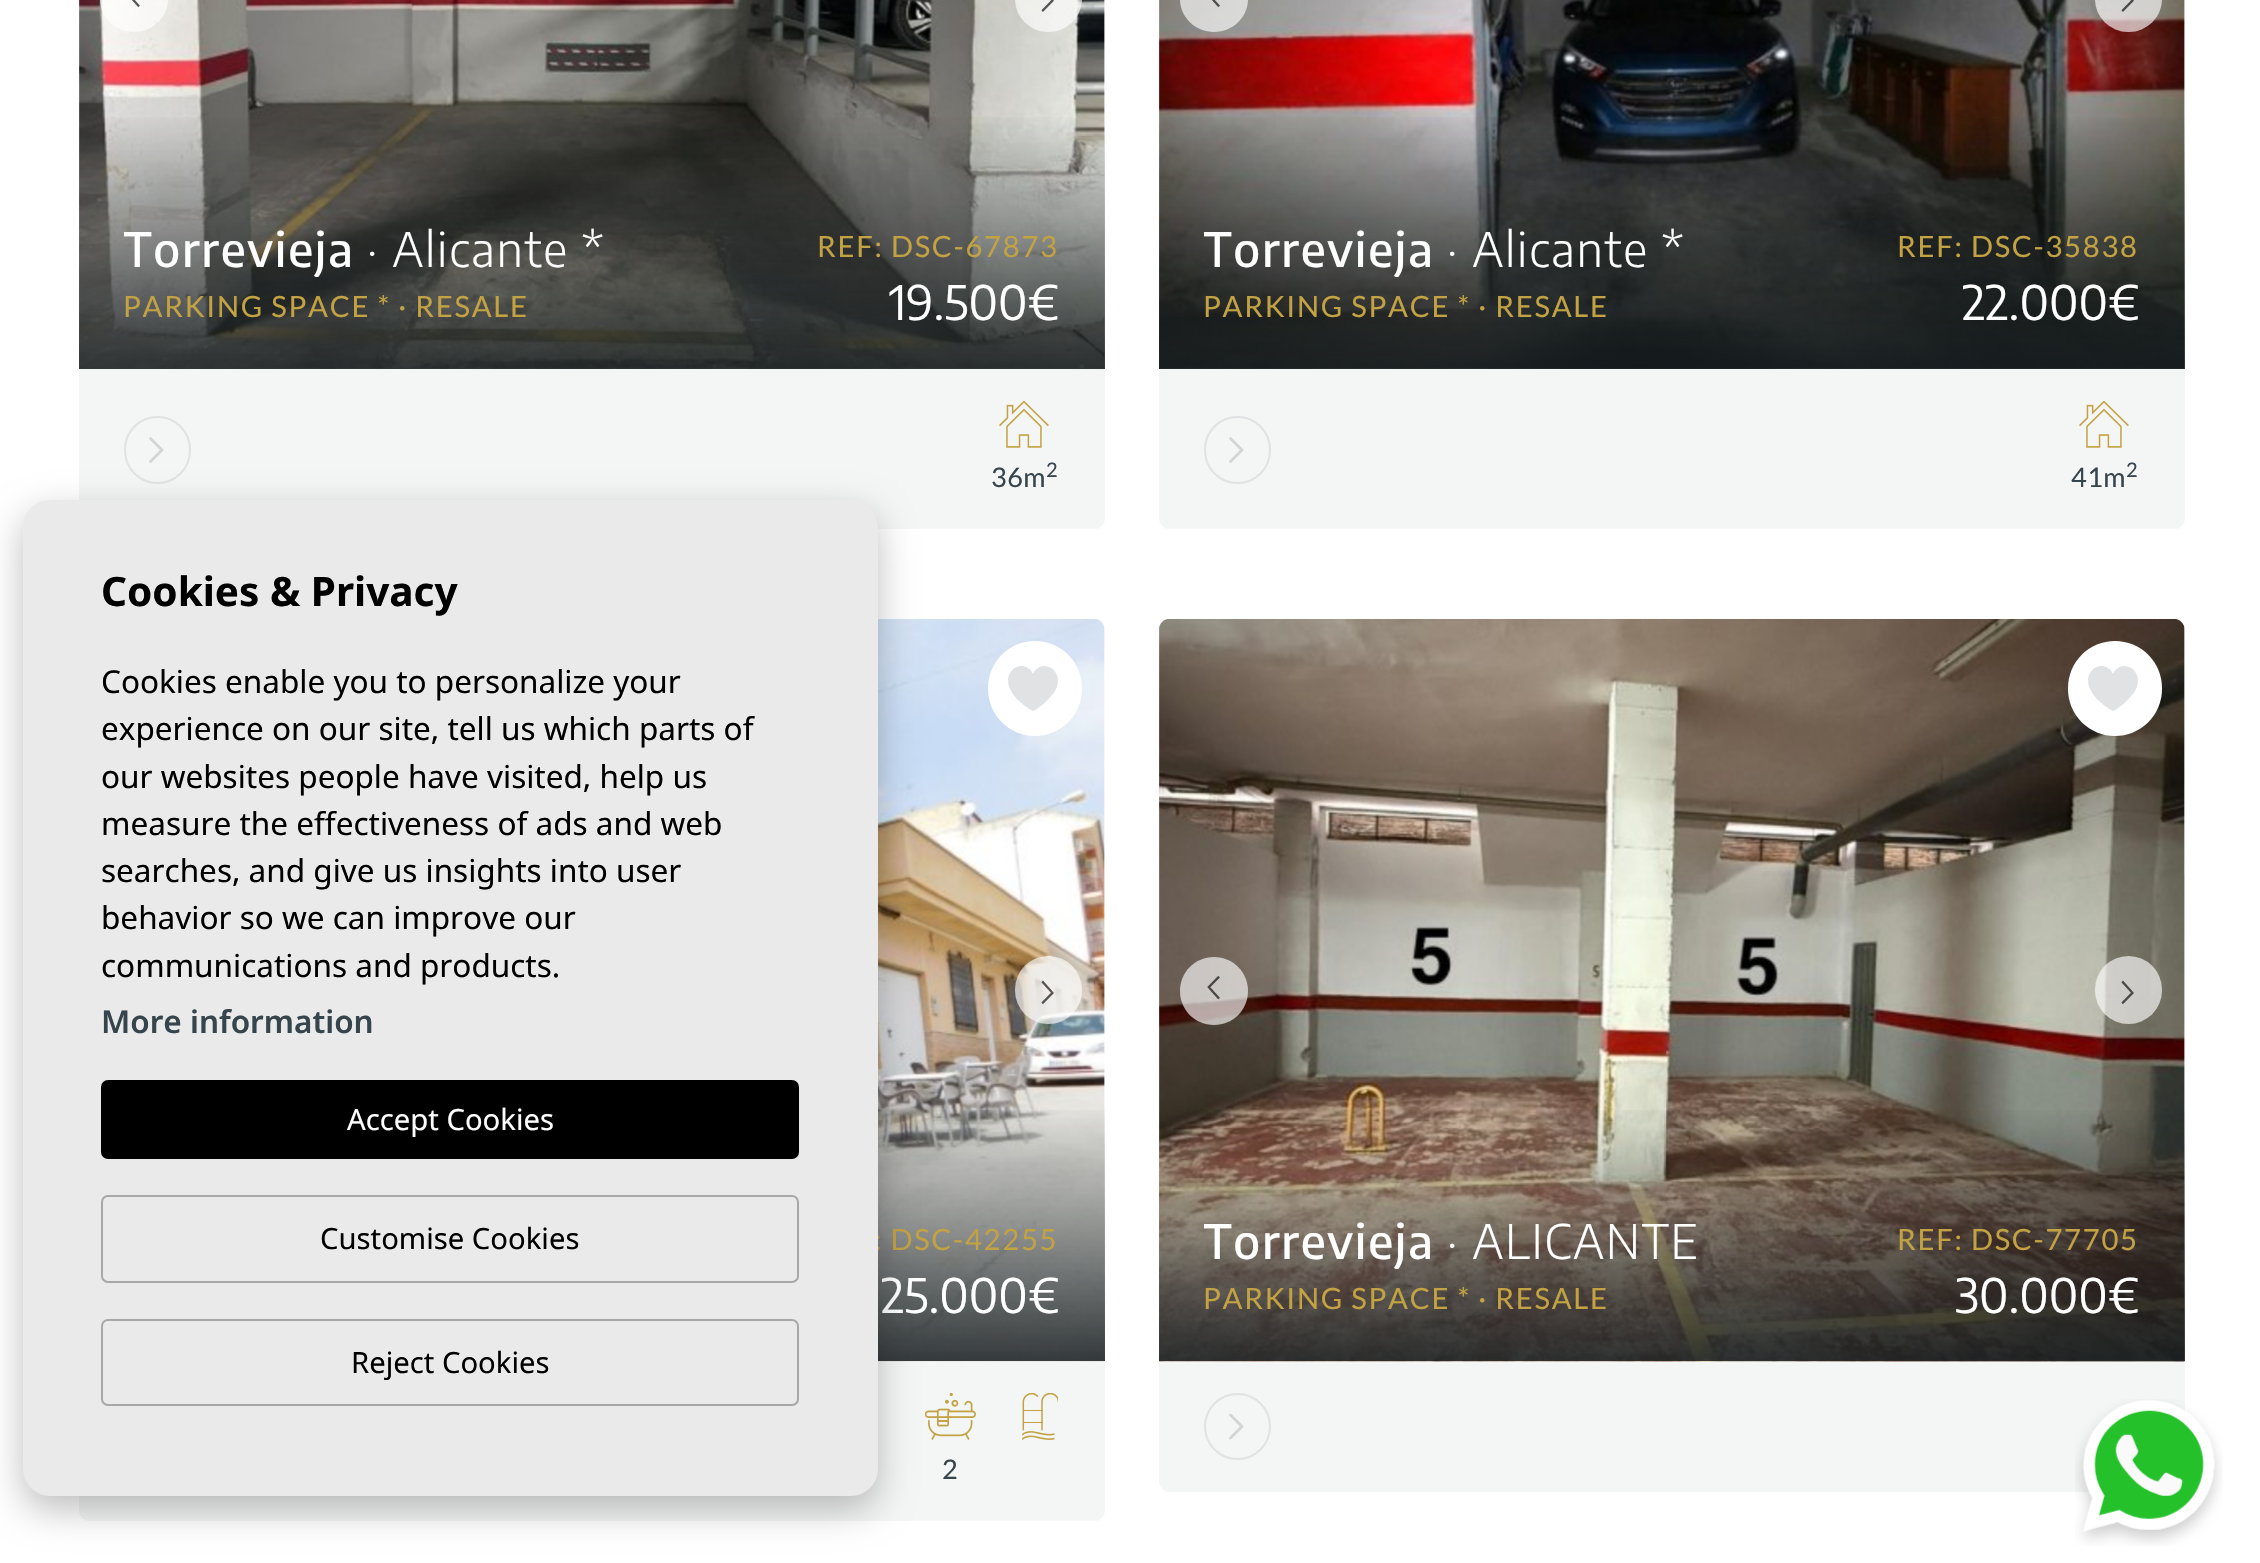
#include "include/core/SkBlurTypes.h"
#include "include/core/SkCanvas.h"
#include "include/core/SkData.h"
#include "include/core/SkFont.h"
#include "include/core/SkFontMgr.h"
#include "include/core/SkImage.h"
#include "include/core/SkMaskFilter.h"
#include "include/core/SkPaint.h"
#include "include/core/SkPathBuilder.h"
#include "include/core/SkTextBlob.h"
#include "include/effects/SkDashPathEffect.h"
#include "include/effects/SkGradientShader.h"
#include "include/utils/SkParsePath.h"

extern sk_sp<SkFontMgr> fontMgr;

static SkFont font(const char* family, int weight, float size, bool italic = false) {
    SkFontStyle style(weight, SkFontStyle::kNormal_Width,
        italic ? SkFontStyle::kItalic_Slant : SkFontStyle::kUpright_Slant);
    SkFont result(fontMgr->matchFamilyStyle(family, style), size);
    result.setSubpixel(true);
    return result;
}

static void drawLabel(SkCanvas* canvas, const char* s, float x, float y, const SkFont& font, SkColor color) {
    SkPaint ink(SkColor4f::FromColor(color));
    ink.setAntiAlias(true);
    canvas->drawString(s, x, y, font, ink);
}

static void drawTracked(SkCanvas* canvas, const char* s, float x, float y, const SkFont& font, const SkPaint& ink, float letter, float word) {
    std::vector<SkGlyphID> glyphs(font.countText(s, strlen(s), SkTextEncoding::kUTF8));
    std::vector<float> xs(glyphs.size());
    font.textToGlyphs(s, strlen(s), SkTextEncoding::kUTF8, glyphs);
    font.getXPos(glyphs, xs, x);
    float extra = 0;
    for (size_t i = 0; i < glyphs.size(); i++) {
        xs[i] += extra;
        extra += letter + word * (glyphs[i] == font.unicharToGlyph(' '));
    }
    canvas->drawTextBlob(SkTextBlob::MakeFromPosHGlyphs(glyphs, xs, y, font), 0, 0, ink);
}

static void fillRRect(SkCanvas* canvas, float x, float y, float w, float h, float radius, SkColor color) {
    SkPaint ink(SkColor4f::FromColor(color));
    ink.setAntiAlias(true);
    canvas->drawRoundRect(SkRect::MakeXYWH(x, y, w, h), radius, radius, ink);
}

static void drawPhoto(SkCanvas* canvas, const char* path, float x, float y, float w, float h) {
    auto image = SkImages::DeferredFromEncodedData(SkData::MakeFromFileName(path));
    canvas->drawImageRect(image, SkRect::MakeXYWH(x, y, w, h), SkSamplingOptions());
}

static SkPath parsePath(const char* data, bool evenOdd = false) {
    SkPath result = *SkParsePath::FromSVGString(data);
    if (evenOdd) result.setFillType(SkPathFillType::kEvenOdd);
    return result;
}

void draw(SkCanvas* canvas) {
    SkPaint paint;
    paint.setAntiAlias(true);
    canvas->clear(0xFFFFFFFF);
    drawPhoto(canvas, "assets/img2.png", 79, 0, 1026, 369);
    fillRRect(canvas, 1015, -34, 67, 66, 33.5f, 0xA3FFFFFF);
    drawPhoto(canvas, "assets/img1.png", 1041, 0, 13, 12);
    drawPhoto(canvas, "assets/img3.png", 1104, 0, 1, 369);
    paint.setColor(0xA3FFFFFF);
    canvas->drawPath(parsePath("M134 32C115 32 100 17 100-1C100-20 115-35 134-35C153-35 168-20 168-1C168 17 153 32 134 32Z"), paint);
    drawPhoto(canvas, "assets/img4.png", 132, 0, 8, 8);
    {
        const SkColor colors[] = {0xD9161D20, 0x00161D20};
        const float stops[] = {0, 1};
        const SkPoint ends[] = {{592, 369}, {592, 110}};
        paint.setShader(SkGradientShader::MakeLinear(ends, colors, stops, 2, SkTileMode::kClamp));
        paint.setAlpha(255);
    }
    canvas->drawRect(SkRect::MakeXYWH(79, 117, 1026, 252), paint);
    canvas->save();
    canvas->clipRect(SkRect::MakeXYWH(124, 221, 481, 56));
    SkFont font1 = font("Encode Sans Condensed", 500, 47.25f);
    paint.setShader(nullptr);
    paint.setColor(0xFFFFFFFF);
    drawTracked(canvas, "Torrevieja", 123, 267, font1, paint, 1.7f, 0);
    canvas->restore();
    SkFont font2 = font("Encode Sans Condensed", 300, 47.25f);
    drawTracked(canvas, "· Alicante *", 367, 267, font2, paint, 1.7f, 0);
    SkFont font3 = font("Lato", 400, 29.25f);
    paint.setColor(0xFFC2A242);
    drawTracked(canvas, "PARKING SPACE * · RESALE", 123, 317, font3, paint, 1.7f, 0);
    drawTracked(canvas, "REF: DSC-67873", 817, 257, font3, paint, 1.7f, 0);
    SkFont font4 = font("Encode Sans Condensed", 400, 47.25f);
    drawLabel(canvas, "19.500€", 889, 320, font4, 0xFFFFFFFF);
    paint.setColor(0xFFF4F5F5);
    canvas->drawPath(parsePath("M79 369H1105V518C1105 524 1100 529 1094 529H90C84 529 79 524 79 518Z"), paint);
    paint.setStroke(true);
    paint.setStrokeWidth(2);
    paint.setColor(0xFFE0E2E3);
    canvas->drawRoundRect(SkRect::MakeXYWH(125, 417, 65, 66), 32.5f, 32.5f, paint);
    paint.setStrokeWidth(2.8f);
    paint.setStrokeCap(SkPaint::kRound_Cap);
    paint.setStrokeJoin(SkPaint::kRound_Join);
    paint.setColor(0xFFD3D4D4);
    canvas->drawPath(parsePath("M150.5 438.5L162 450L150.5 461.5"), paint);
    drawPhoto(canvas, "assets/img5.png", 999, 401, 50, 47);
    SkFont font5 = font("Lato", 400, 27);
    paint.setStroke(false);
    paint.setColor(0xFF36454C);
    drawTracked(canvas, "36m", 991, 487, font5, paint, 0.5f, 0);
    SkFont font6 = font("Lato", 400, 20);
    drawTracked(canvas, "2", 1046, 477, font6, paint, 0.5f, 0);
    drawPhoto(canvas, "assets/img7.png", 1159, 0, 1026, 369);
    fillRRect(canvas, 2095, -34, 67, 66, 33.5f, 0xA3FFFFFF);
    drawPhoto(canvas, "assets/img6.png", 2121, 0, 13, 12);
    drawPhoto(canvas, "assets/img8.png", 2184, 0, 1, 369);
    paint.setColor(0xA3FFFFFF);
    canvas->drawPath(parsePath("M1214 32C1195 32 1180 17 1180-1C1180-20 1195-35 1214-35C1233-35 1248-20 1248-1C1248 17 1233 32 1214 32Z"), paint);
    drawPhoto(canvas, "assets/img9.png", 1212, 0, 8, 8);
    {
        const SkColor colors[] = {0xD9161D20, 0x00161D20};
        const float stops[] = {0, 1};
        const SkPoint ends[] = {{1672, 369}, {1672, 110}};
        paint.setShader(SkGradientShader::MakeLinear(ends, colors, stops, 2, SkTileMode::kClamp));
        paint.setAlpha(255);
    }
    canvas->drawRect(SkRect::MakeXYWH(1159, 117, 1026, 252), paint);
    canvas->save();
    canvas->clipRect(SkRect::MakeXYWH(1204, 221, 481, 56));
    paint.setShader(nullptr);
    paint.setColor(0xFFFFFFFF);
    drawTracked(canvas, "Torrevieja", 1203, 267, font1, paint, 1.7f, 0);
    canvas->restore();
    drawTracked(canvas, "· Alicante *", 1447, 267, font2, paint, 1.7f, 0);
    paint.setColor(0xFFC2A242);
    drawTracked(canvas, "PARKING SPACE * · RESALE", 1203, 317, font3, paint, 1.7f, 0);
    drawTracked(canvas, "REF: DSC-35838", 1897, 257, font3, paint, 1.7f, 0);
    drawLabel(canvas, "22.000€", 1962, 320, font4, 0xFFFFFFFF);
    paint.setColor(0xFFF4F5F5);
    canvas->drawPath(parsePath("M1159 369H2185V518C2185 524 2180 529 2174 529H1170C1164 529 1159 524 1159 518Z"), paint);
    paint.setStroke(true);
    paint.setStrokeWidth(2);
    paint.setStrokeCap(SkPaint::kButt_Cap);
    paint.setStrokeJoin(SkPaint::kMiter_Join);
    paint.setColor(0xFFE0E2E3);
    canvas->drawRoundRect(SkRect::MakeXYWH(1205, 417, 65, 66), 32.5f, 32.5f, paint);
    paint.setStrokeWidth(2.8f);
    paint.setStrokeCap(SkPaint::kRound_Cap);
    paint.setStrokeJoin(SkPaint::kRound_Join);
    paint.setColor(0xFFD3D4D4);
    canvas->drawPath(parsePath("M1230.5 438.5L1242 450L1230.5 461.5"), paint);
    drawPhoto(canvas, "assets/img5.png", 2079, 401, 50, 47);
    paint.setStroke(false);
    paint.setColor(0xFF36454C);
    drawTracked(canvas, "41m", 2071, 487, font5, paint, 0.5f, 0);
    drawTracked(canvas, "2", 2126, 477, font6, paint, 0.5f, 0);
    paint.setColor(0xFFF4F5F5);
    canvas->drawPath(parsePath("M79 1361H1105V1510C1105 1516 1100 1521 1094 1521H90C84 1521 79 1516 79 1510Z"), paint);
    drawPhoto(canvas, "assets/img10.png", 878, 619, 227, 743);
    fillRRect(canvas, 988, 641, 94, 95, 47, 0xFFFFFFFF);
    paint.setColor(0xFFE0E2E3);
    canvas->drawPath(parsePath("M1055 691C1051 697 1042 707 1033 711C1027 708 1022 704 1017 699C993 673 1024 655 1033 674C1041 656 1067 671 1055 691"), paint);
    drawPhoto(canvas, "assets/img11.png", 1104, 628, 1, 733);
    fillRRect(canvas, 1015, 956, 67, 68, 33.5f, 0xA3FFFFFF);
    drawPhoto(canvas, "assets/img12.png", 1041, 980, 13, 25);
    {
        const SkColor colors[] = {0xD9161D20, 0x00161D20};
        const float stops[] = {0, 1};
        const SkPoint ends[] = {{592, 1361}, {592, 1103}};
        paint.setShader(SkGradientShader::MakeLinear(ends, colors, stops, 2, SkTileMode::kClamp));
        paint.setAlpha(255);
    }
    canvas->drawRect(SkRect::MakeXYWH(878, 1110, 227, 251), paint);
    paint.setShader(nullptr);
    paint.setColor(0xFFC2A242);
    drawTracked(canvas, ": DSC-42255", 874, 1250, font3, paint, 1.7f, 0);
    drawLabel(canvas, "25.000€", 881, 1313, font4, 0xFFFFFFFF);
    drawPhoto(canvas, "assets/img13.png", 1022, 1393, 36, 47);
    drawPhoto(canvas, "assets/img14.png", 925, 1393, 51, 47);
    paint.setColor(0xFF36454C);
    drawTracked(canvas, "2", 942, 1479, font5, paint, 0.5f, 0);
    paint.setColor(0xFFF4F5F5);
    canvas->drawPath(parsePath("M1159 1361H2185V1481C2185 1487 2180 1492 2174 1492H1170C1164 1492 1159 1487 1159 1481Z"), paint);
    drawPhoto(canvas, "assets/img15.png", 1159, 619, 1026, 743);
    fillRRect(canvas, 2068, 641, 94, 95, 47, 0xFFFFFFFF);
    paint.setColor(0xFFE0E2E3);
    canvas->drawPath(parsePath("M2135 691C2131 697 2122 707 2113 711C2107 708 2102 704 2097 699C2073 673 2104 655 2113 674C2121 656 2147 671 2135 691"), paint);
    drawPhoto(canvas, "assets/img16.png", 2184, 627, 1, 735);
    paint.setColor(0xA3FFFFFF);
    canvas->drawPath(parsePath("M1214 1025C1195 1025 1180 1010 1180 991C1180 972 1195 957 1214 957C1233 957 1248 972 1248 991C1248 1010 1233 1025 1214 1025Z"), paint);
    drawPhoto(canvas, "assets/img17.png", 1207, 975, 13, 25);
    fillRRect(canvas, 2095, 956, 67, 68, 33.5f, 0xA3FFFFFF);
    drawPhoto(canvas, "assets/img18.png", 2121, 980, 13, 25);
    {
        const SkColor colors[] = {0xD9161D20, 0x00161D20};
        const float stops[] = {0, 1};
        const SkPoint ends[] = {{1672, 1361}, {1672, 1103}};
        paint.setShader(SkGradientShader::MakeLinear(ends, colors, stops, 2, SkTileMode::kClamp));
        paint.setAlpha(255);
    }
    canvas->drawRect(SkRect::MakeXYWH(1159, 1110, 1026, 251), paint);
    canvas->save();
    canvas->clipRect(SkRect::MakeXYWH(1204, 1213, 495, 56));
    paint.setShader(nullptr);
    paint.setColor(0xFFFFFFFF);
    drawTracked(canvas, "Torrevieja", 1203, 1259, font1, paint, 1.7f, 0);
    canvas->restore();
    drawTracked(canvas, "· ALICANTE", 1447, 1259, font2, paint, 1.7f, 0);
    paint.setColor(0xFFC2A242);
    drawTracked(canvas, "PARKING SPACE * · RESALE", 1203, 1309, font3, paint, 1.7f, 0);
    drawTracked(canvas, "REF: DSC-77705", 1897, 1250, font3, paint, 1.7f, 0);
    drawLabel(canvas, "30.000€", 1955, 1313, font4, 0xFFFFFFFF);
    paint.setStroke(true);
    paint.setStrokeWidth(2);
    paint.setStrokeCap(SkPaint::kButt_Cap);
    paint.setStrokeJoin(SkPaint::kMiter_Join);
    paint.setColor(0xFFE0E2E3);
    canvas->drawCircle(1237.5f, 1426.5f, 32.5f, paint);
    paint.setStrokeWidth(2.8f);
    paint.setStrokeCap(SkPaint::kRound_Cap);
    paint.setStrokeJoin(SkPaint::kRound_Join);
    paint.setColor(0xFFD3D4D4);
    canvas->drawPath(parsePath("M1230.5 1415L1242 1426.5L1230.5 1438"), paint);
    paint.setStroke(false);
    paint.setColor(0x40000000);
    paint.setMaskFilter(SkMaskFilter::MakeBlur(kNormal_SkBlurStyle, 18));
    canvas->drawRoundRect(SkRect::MakeXYWH(23, 513, 855, 997), 27, 27, paint);
    paint.setMaskFilter(nullptr);
    fillRRect(canvas, 23, 500, 855, 996, 27, 0xFFEAEAEA);
    SkFont font7 = font("Noto Sans", 700, 40.5f);
    drawLabel(canvas, "Cookies & Privacy", 101, 606, font7, 0xFF000000);
    SkFont font8 = font("Noto Sans", 400, 31.5f);
    drawLabel(canvas, "Cookies enable you to personalize your", 101, 693, font8, 0xFF000000);
    drawLabel(canvas, "experience on our site, tell us which parts of", 101, 740, font8, 0xFF000000);
    drawLabel(canvas, "our websites people have visited, help us", 101, 788, font8, 0xFF000000);
    drawLabel(canvas, "measure the effectiveness of ads and web", 101, 835, font8, 0xFF000000);
    drawLabel(canvas, "searches, and give us insights into user", 101, 882, font8, 0xFF000000);
    drawLabel(canvas, "behavior so we can improve our", 101, 929, font8, 0xFF000000);
    drawLabel(canvas, "communications and products.", 101, 977, font8, 0xFF000000);
    SkFont font9 = font("Noto Sans", 600, 31.5f);
    drawLabel(canvas, "More information", 101, 1033, font9, 0xFF36454C);
    fillRRect(canvas, 101, 1080, 698, 79, 7, 0xFF000000);
    SkFont font10 = font("Noto Sans", 400, 29.25f);
    drawLabel(canvas, "Accept Cookies", 347, 1130, font10, 0xFFFFFFFF);
    paint.setStroke(true);
    paint.setStrokeWidth(2);
    paint.setStrokeCap(SkPaint::kButt_Cap);
    paint.setStrokeJoin(SkPaint::kMiter_Join);
    paint.setColor(0xFFA8A8A8);
    canvas->drawRoundRect(SkRect::MakeXYWH(102, 1196, 696, 86), 6, 6, paint);
    drawLabel(canvas, "Customise Cookies", 320, 1249, font10, 0xFF000000);
    canvas->drawRoundRect(SkRect::MakeXYWH(102, 1320, 696, 85), 6, 6, paint);
    drawLabel(canvas, "Reject Cookies", 351, 1373, font10, 0xFF000000);
    drawPhoto(canvas, "assets/img19.png", 2075, 1399, 148, 147);
}
